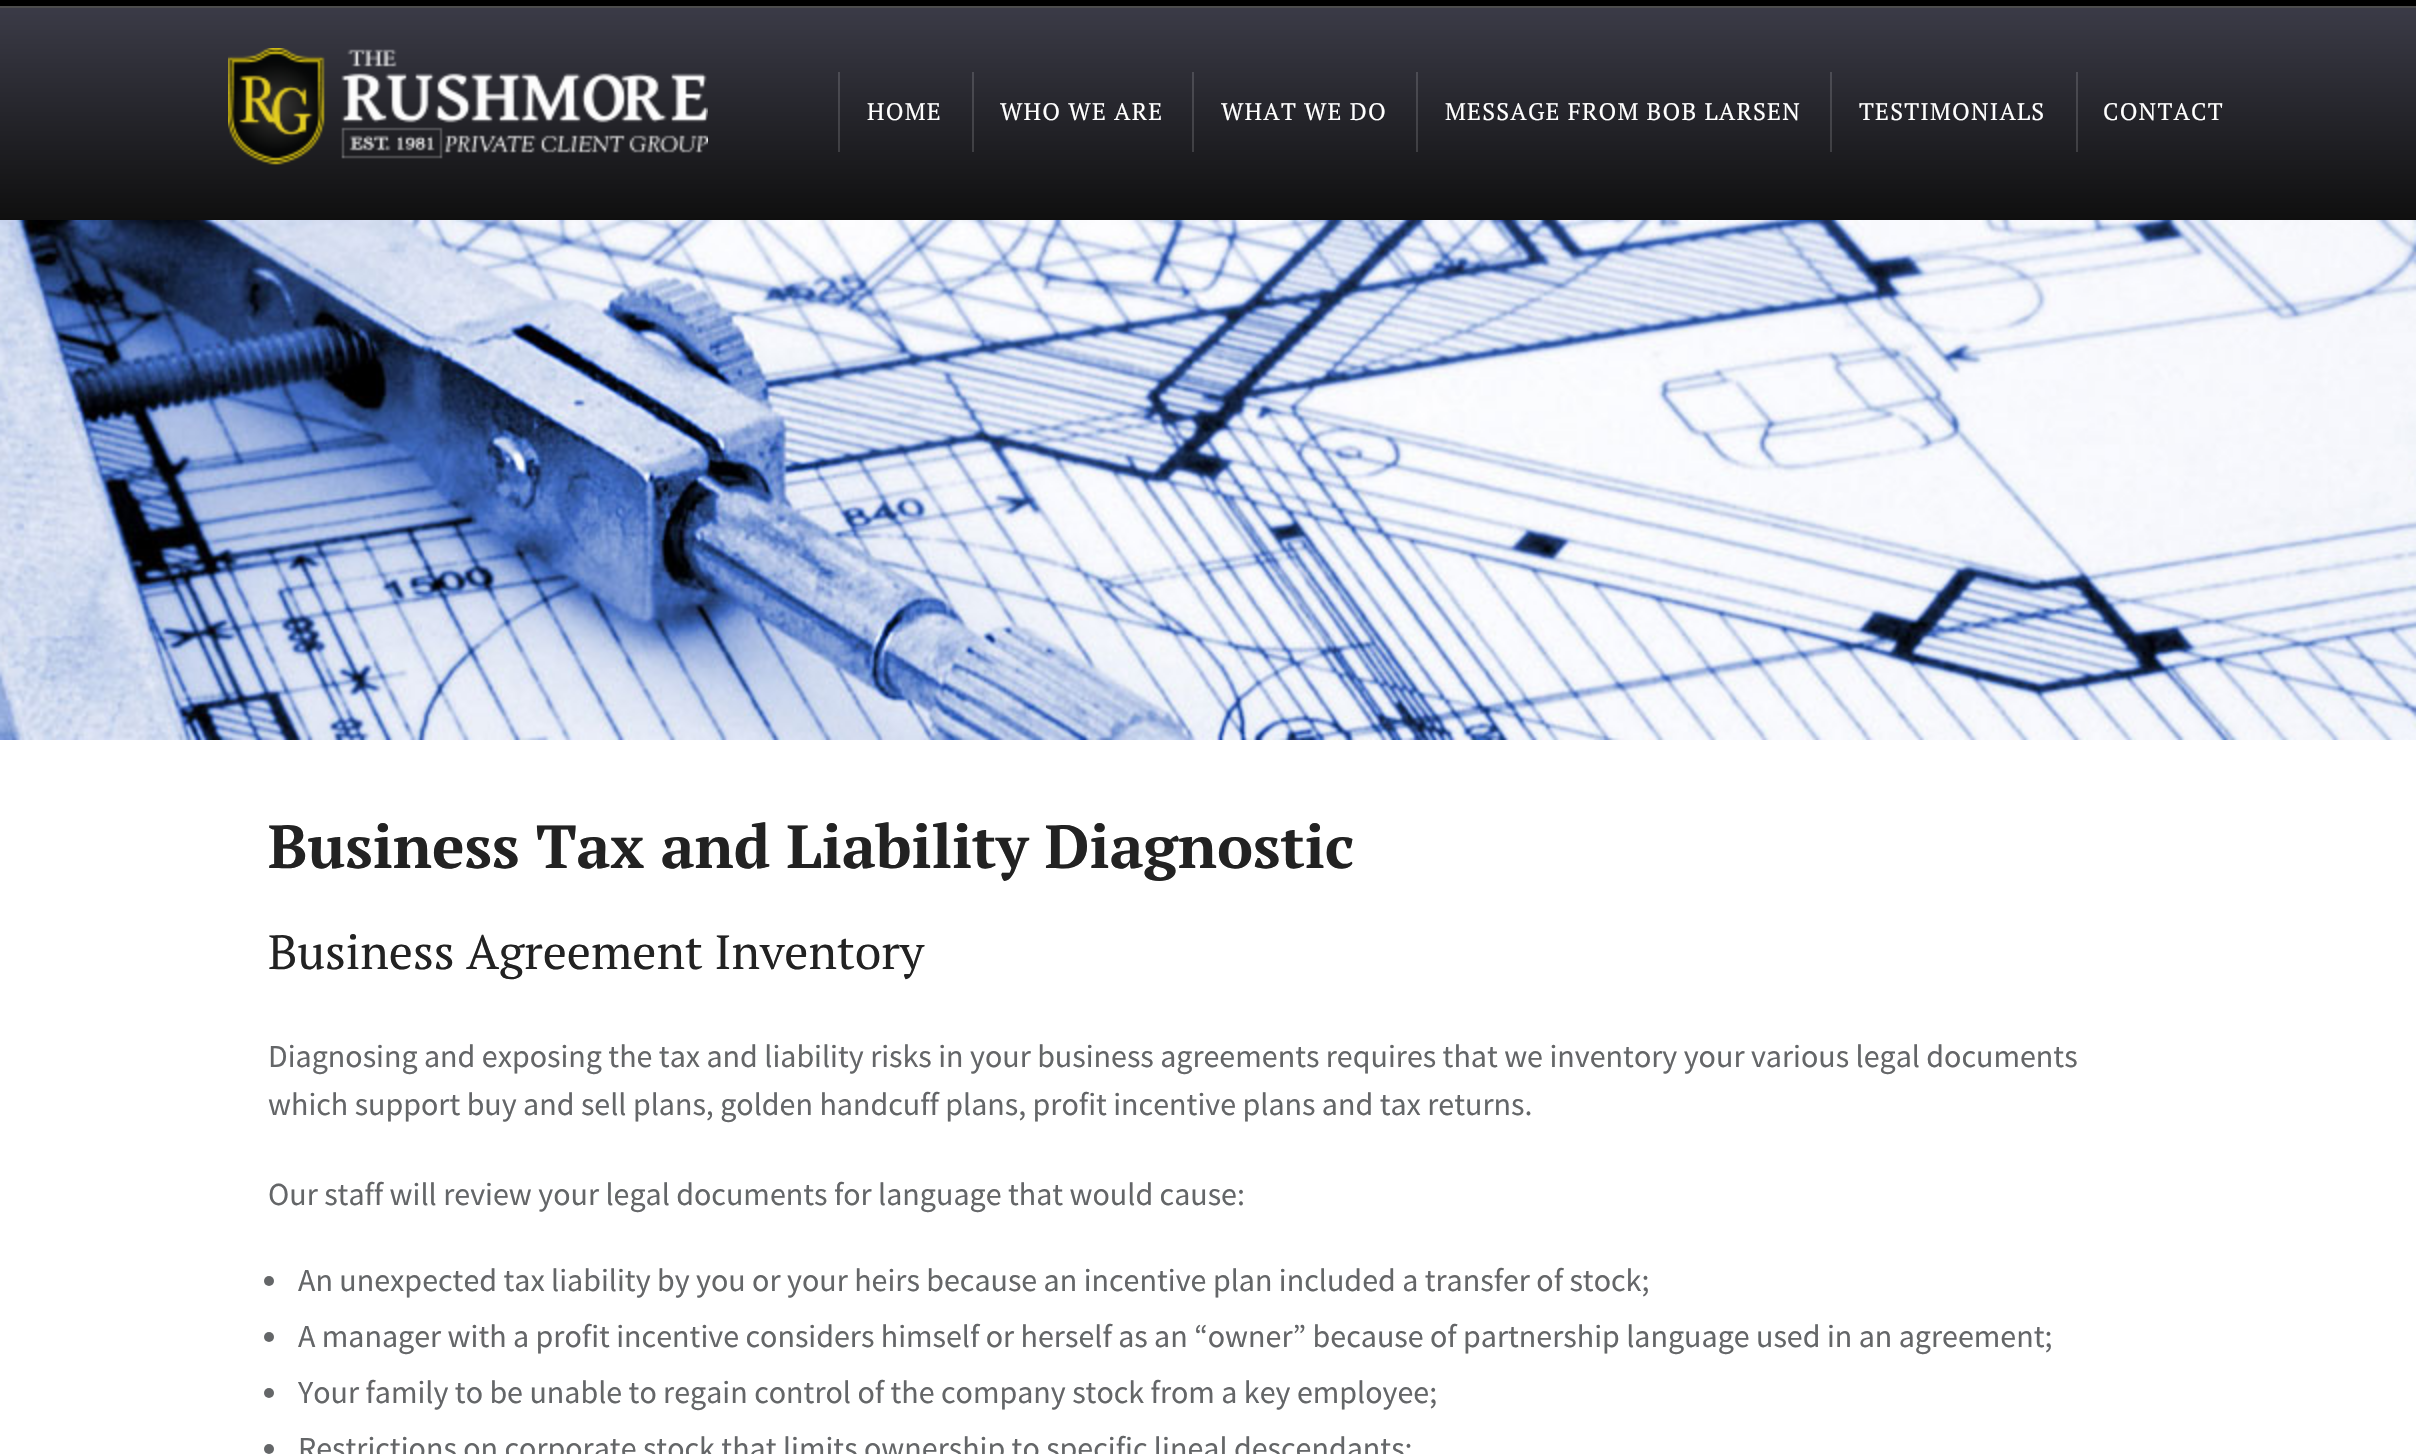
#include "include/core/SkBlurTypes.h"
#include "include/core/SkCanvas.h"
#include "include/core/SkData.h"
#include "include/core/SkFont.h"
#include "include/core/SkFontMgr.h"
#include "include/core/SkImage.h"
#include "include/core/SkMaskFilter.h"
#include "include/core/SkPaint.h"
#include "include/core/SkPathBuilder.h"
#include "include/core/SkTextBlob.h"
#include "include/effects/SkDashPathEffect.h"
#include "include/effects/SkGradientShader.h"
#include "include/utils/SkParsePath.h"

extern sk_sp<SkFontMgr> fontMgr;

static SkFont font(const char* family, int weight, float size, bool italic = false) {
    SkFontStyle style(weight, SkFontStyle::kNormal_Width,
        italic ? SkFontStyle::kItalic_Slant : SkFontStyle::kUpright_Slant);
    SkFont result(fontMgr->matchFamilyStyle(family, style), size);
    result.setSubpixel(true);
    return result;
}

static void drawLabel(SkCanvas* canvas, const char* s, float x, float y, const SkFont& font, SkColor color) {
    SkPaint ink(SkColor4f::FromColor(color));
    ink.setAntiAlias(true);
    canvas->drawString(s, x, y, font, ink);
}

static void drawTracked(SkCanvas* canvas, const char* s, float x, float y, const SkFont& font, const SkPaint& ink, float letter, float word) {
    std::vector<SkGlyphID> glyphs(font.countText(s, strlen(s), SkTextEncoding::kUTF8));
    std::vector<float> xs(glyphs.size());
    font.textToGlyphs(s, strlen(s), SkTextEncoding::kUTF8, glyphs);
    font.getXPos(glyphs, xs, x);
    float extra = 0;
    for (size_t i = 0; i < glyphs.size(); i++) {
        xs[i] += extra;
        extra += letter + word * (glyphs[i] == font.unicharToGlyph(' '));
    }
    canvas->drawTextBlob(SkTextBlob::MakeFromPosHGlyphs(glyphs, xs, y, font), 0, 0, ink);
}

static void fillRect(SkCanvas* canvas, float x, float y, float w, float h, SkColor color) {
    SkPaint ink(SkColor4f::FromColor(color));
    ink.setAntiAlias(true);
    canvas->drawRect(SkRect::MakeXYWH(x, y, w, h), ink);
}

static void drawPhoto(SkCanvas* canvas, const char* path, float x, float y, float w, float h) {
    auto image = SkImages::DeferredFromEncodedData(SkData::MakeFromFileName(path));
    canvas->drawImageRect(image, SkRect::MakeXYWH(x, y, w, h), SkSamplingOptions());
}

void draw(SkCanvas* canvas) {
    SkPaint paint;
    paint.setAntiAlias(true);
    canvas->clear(0xFF000000);
    {
        const SkColor colors[] = {0xFF3B3B47, 0xFF0F0F0F};
        const float stops[] = {0, 1};
        const SkPoint ends[] = {{1208, 8}, {1208, 220}};
        paint.setShader(SkGradientShader::MakeLinear(ends, colors, stops, 2, SkTileMode::kClamp));
        paint.setAlpha(255);
    }
    canvas->drawRect(SkRect::MakeXYWH(0, 8, 2416, 212), paint);
    {
        const SkColor colors[] = {0xFF585863, 0xFF333333};
        const float stops[] = {0, 1};
        const SkPoint ends[] = {{1208, 8}, {1208, 220}};
        paint.setShader(SkGradientShader::MakeLinear(ends, colors, stops, 2, SkTileMode::kClamp));
        paint.setAlpha(255);
    }
    canvas->drawRect(SkRect::MakeXYWH(2076, 72, 2, 80), paint);
    canvas->drawRect(SkRect::MakeXYWH(1830, 72, 2, 80), paint);
    canvas->drawRect(SkRect::MakeXYWH(1416, 72, 2, 80), paint);
    canvas->drawRect(SkRect::MakeXYWH(1192, 72, 2, 80), paint);
    canvas->drawRect(SkRect::MakeXYWH(972, 72, 2, 80), paint);
    canvas->drawRect(SkRect::MakeXYWH(838, 72, 2, 80), paint);
    fillRect(canvas, 0, 6, 2416, 2, 0xFF4D4D4D);
    drawPhoto(canvas, "assets/img1.png", 228, 48, 480, 117);
    SkFont font1 = font("PT Serif", 400, 24);
    paint.setShader(nullptr);
    paint.setColor(0xFFFFFFFF);
    drawTracked(canvas, "HOME", 867, 120, font1, paint, 1.2f, 0);
    drawTracked(canvas, "WHO WE ARE", 1000, 120, font1, paint, 1.2f, 0);
    drawTracked(canvas, "WHAT WE DO", 1221, 120, font1, paint, 1.2f, 0);
    drawTracked(canvas, "MESSAGE FROM BOB LARSEN", 1445, 120, font1, paint, 1.2f, 0);
    drawTracked(canvas, "TESTIMONIALS", 1859, 120, font1, paint, 1.2f, 0);
    drawTracked(canvas, "CONTACT", 2103, 120, font1, paint, 1.2f, 0);
    fillRect(canvas, 0, 740, 2416, 714, 0xFFFFFFFF);
    drawPhoto(canvas, "assets/img2.png", 0, 220, 2416, 520);
    SkFont font2 = font("PT Serif", 700, 60.75f);
    drawLabel(canvas, "Business Tax and Liability Diagnostic", 268, 868, font2, 0xFF222222);
    SkFont font3 = font("PT Serif", 400, 48);
    drawLabel(canvas, "Business Agreement Inventory", 268, 969, font3, 0xFF222222);
    SkFont font4 = font("Source Sans Pro", 400, 32);
    drawLabel(canvas, "Diagnosing and exposing the tax and liability risks in your business agreements requires that we inventory your various legal documents", 268, 1067, font4, 0xFF646668);
    drawLabel(canvas, "which support buy and sell plans, golden handcuff plans, profit incentive plans and tax returns.", 268, 1115, font4, 0xFF646668);
    drawLabel(canvas, "Our staff will review your legal documents for language that would cause:", 268, 1205, font4, 0xFF646668);
    paint.setColor(0xFF646668);
    canvas->drawCircle(269, 1281, 5, paint);
    drawLabel(canvas, "An unexpected tax liability by you or your heirs because an incentive plan included a transfer of stock;", 298, 1291, font4, 0xFF646668);
    canvas->drawCircle(269, 1337, 5, paint);
    drawLabel(canvas, "A manager with a profit incentive considers himself or herself as an “owner” because of partnership language used in an agreement;", 298, 1347, font4, 0xFF646668);
    canvas->drawCircle(269, 1393, 5, paint);
    drawLabel(canvas, "Your family to be unable to regain control of the company stock from a key employee;", 298, 1403, font4, 0xFF646668);
    canvas->drawCircle(269, 1449, 5, paint);
    drawLabel(canvas, "Restrictions on corporate stock that limits ownership to specific lineal descendants;", 298, 1459, font4, 0xFF646668);
}
